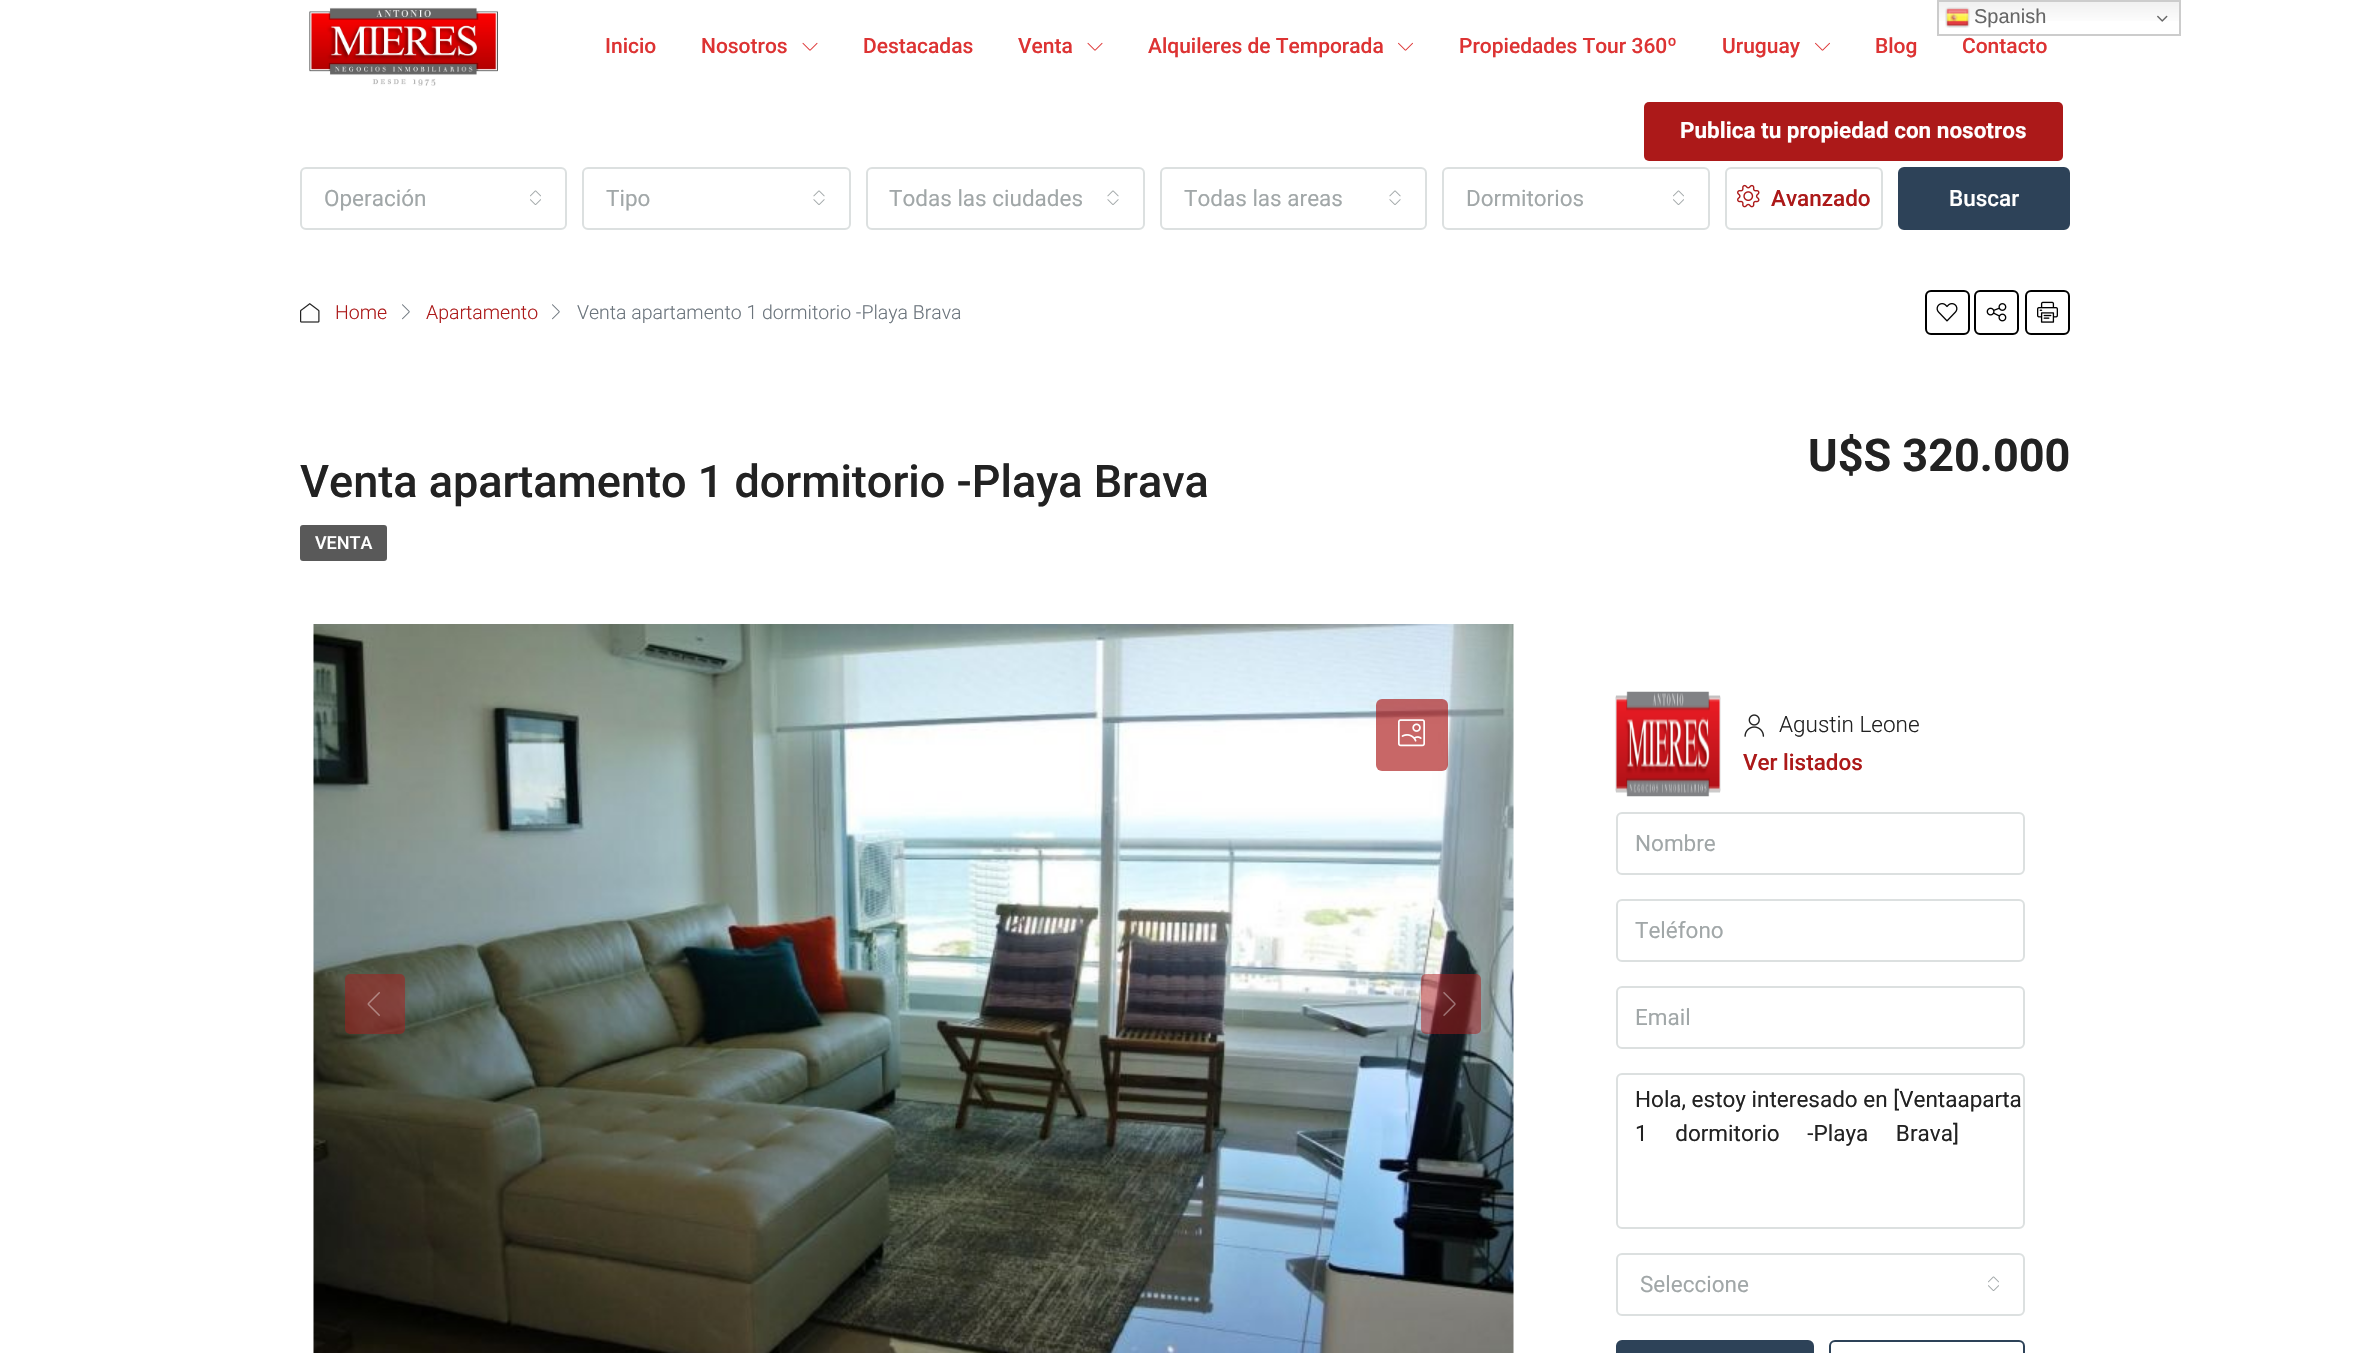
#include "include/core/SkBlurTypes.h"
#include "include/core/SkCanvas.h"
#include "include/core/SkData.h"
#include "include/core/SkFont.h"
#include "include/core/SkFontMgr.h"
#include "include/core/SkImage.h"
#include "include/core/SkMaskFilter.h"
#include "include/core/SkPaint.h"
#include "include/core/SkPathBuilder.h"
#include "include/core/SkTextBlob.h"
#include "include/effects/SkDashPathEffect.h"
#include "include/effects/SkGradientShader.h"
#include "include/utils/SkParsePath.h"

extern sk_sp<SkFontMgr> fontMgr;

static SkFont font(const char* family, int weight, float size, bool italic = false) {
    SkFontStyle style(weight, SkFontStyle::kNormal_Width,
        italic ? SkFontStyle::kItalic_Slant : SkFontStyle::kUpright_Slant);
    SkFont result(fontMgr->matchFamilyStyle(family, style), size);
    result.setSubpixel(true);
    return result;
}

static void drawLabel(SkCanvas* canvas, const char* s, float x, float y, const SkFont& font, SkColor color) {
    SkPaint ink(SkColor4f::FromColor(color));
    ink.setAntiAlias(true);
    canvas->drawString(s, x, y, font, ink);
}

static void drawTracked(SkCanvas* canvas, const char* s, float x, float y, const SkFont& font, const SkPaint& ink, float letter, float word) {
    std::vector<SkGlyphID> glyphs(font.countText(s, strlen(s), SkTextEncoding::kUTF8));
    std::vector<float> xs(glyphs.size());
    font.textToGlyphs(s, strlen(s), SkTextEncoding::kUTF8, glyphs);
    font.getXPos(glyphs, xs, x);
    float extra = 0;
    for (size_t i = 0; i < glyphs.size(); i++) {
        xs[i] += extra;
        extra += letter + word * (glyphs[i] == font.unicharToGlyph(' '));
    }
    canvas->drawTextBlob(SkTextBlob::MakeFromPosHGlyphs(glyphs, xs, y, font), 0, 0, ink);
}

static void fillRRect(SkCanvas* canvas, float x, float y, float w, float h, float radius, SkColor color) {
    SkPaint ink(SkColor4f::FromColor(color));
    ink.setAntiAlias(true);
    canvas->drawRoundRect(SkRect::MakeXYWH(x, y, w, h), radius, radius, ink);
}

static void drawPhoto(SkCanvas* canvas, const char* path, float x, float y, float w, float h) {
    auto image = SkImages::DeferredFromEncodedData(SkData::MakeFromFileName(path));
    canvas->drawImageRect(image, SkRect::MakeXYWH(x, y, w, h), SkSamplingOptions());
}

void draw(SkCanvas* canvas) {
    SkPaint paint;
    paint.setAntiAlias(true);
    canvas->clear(0xFFFFFFFF);
    {
        const SkColor colors[] = {0xFFEFEFEF, 0xFFFFFFFF};
        const float stops[] = {0, 0.7f};
        const SkPoint ends[] = {{2059, 0}, {2059, 36}};
        paint.setShader(SkGradientShader::MakeLinear(ends, colors, stops, 2, SkTileMode::kClamp));
        paint.setAlpha(255);
    }
    canvas->drawRect(SkRect::MakeXYWH(1939, 2, 240, 19), paint);
    paint.setStroke(true);
    paint.setStrokeWidth(2);
    paint.setShader(nullptr);
    paint.setColor(0xFFCCCCCC);
    canvas->drawRect(SkRect::MakeXYWH(1938, 1, 242, 34), paint);
    drawPhoto(canvas, "assets/img1.png", 1945, 7, 25, 21);
    SkFont font1 = font("Liberation Sans", 400, 20);
    drawLabel(canvas, "Spanish", 1974, 23, font1, 0xFF666666);
    drawPhoto(canvas, "assets/img2.png", 2157, 15, 11, 7);
    drawPhoto(canvas, "assets/img3.png", 309, 7, 189, 79);
    SkFont font2 = font("Roboto", 500, 21);
    drawLabel(canvas, "Inicio", 605, 53, font2, 0xFFDD3333);
    drawLabel(canvas, "Nosotros", 701, 53, font2, 0xFFDD3333);
    drawPhoto(canvas, "assets/img4.png", 802, 42, 16, 9);
    drawLabel(canvas, "Destacadas", 863, 53, font2, 0xFFDD3333);
    drawLabel(canvas, "Venta", 1018, 53, font2, 0xFFDD3333);
    drawPhoto(canvas, "assets/img4.png", 1087, 42, 16, 9);
    drawLabel(canvas, "Alquileres de Temporada", 1148, 53, font2, 0xFFDD3333);
    drawPhoto(canvas, "assets/img5.png", 1398, 42, 15, 9);
    drawLabel(canvas, "Propiedades Tour 360º", 1459, 53, font2, 0xFFDD3333);
    drawLabel(canvas, "Uruguay", 1722, 53, font2, 0xFFDD3333);
    drawPhoto(canvas, "assets/img5.png", 1815, 42, 15, 9);
    drawLabel(canvas, "Blog", 1875, 53, font2, 0xFFDD3333);
    drawLabel(canvas, "Contacto", 1962, 53, font2, 0xFFDD3333);
    fillRRect(canvas, 1644, 102, 419, 59, 5, 0xFFAC1919);
    SkFont font3 = font("Roboto", 700, 22.5f);
    drawLabel(canvas, "Publica tu propiedad con nosotros", 1680, 138, font3, 0xFFFFFFFF);
    paint.setColor(0xFFDCE0E0);
    canvas->drawRoundRect(SkRect::MakeXYWH(301, 168, 265, 61), 5, 5, paint);
    SkFont font4 = font("Roboto", 400, 22.5f);
    drawLabel(canvas, "Operación", 324, 206, font4, 0xFFA1A7A8);
    drawPhoto(canvas, "assets/img6.png", 530, 190, 11, 15);
    canvas->drawRoundRect(SkRect::MakeXYWH(583, 168, 267, 61), 5, 5, paint);
    drawLabel(canvas, "Tipo", 606, 206, font4, 0xFFA1A7A8);
    drawPhoto(canvas, "assets/img7.png", 813, 190, 12, 15);
    canvas->drawRoundRect(SkRect::MakeXYWH(867, 168, 277, 61), 5, 5, paint);
    drawLabel(canvas, "Todas las ciudades", 889, 206, font4, 0xFFA1A7A8);
    drawPhoto(canvas, "assets/img7.png", 1107, 190, 12, 15);
    canvas->drawRoundRect(SkRect::MakeXYWH(1161, 168, 265, 61), 5, 5, paint);
    drawLabel(canvas, "Todas las areas", 1184, 206, font4, 0xFFA1A7A8);
    drawPhoto(canvas, "assets/img7.png", 1389, 190, 12, 15);
    canvas->drawRoundRect(SkRect::MakeXYWH(1443, 168, 266, 61), 5, 5, paint);
    drawLabel(canvas, "Dormitorios", 1466, 206, font4, 0xFFA1A7A8);
    drawPhoto(canvas, "assets/img6.png", 1673, 190, 11, 15);
    canvas->drawRoundRect(SkRect::MakeXYWH(1726, 168, 156, 61), 5, 5, paint);
    drawPhoto(canvas, "assets/img8.png", 1737, 184, 23, 24);
    SkFont font5 = font("Roboto", 500, 22.5f);
    drawLabel(canvas, "Avanzado", 1771, 206, font5, 0xFFAC1919);
    paint.setStroke(false);
    paint.setColor(0xFF2D4258);
    canvas->drawRoundRect(SkRect::MakeXYWH(1899, 168, 170, 61), 5, 5, paint);
    paint.setStroke(true);
    canvas->drawRoundRect(SkRect::MakeXYWH(1899, 168, 170, 61), 5, 5, paint);
    drawLabel(canvas, "Buscar", 1949, 206, font5, 0xFFFFFFFF);
    drawPhoto(canvas, "assets/img9.png", 300, 303, 20, 20);
    SkFont font6 = font("Roboto", 300, 19.5f);
    drawLabel(canvas, "Home", 335, 319, font6, 0xFFAC1919);
    drawPhoto(canvas, "assets/img10.png", 402, 304, 8, 16);
    drawLabel(canvas, "Apartamento", 426, 319, font6, 0xFFAC1919);
    drawPhoto(canvas, "assets/img10.png", 552, 304, 8, 16);
    drawLabel(canvas, "Venta apartamento 1 dormitorio -Playa Brava", 577, 319, font6, 0xFF6C757D);
    paint.setColor(0xFF000000);
    canvas->drawRoundRect(SkRect::MakeXYWH(1926, 291, 43, 43), 5, 5, paint);
    drawPhoto(canvas, "assets/img11.png", 1936, 303, 22, 19);
    canvas->drawRoundRect(SkRect::MakeXYWH(1975, 291, 43, 43), 5, 5, paint);
    drawPhoto(canvas, "assets/img12.png", 1986, 303, 21, 19);
    canvas->drawRoundRect(SkRect::MakeXYWH(2026, 291, 43, 43), 5, 5, paint);
    drawPhoto(canvas, "assets/img13.png", 2037, 301, 21, 22);
    SkFont font7 = font("Roboto", 700, 45);
    drawLabel(canvas, "U$S 320.000", 1808, 471, font7, 0xFF222222);
    SkFont font8 = font("Roboto", 500, 45);
    drawLabel(canvas, "Venta apartamento 1 dormitorio -Playa Brava", 300, 497, font8, 0xFF222222);
    fillRRect(canvas, 300, 525, 87, 36, 3, 0xFF595959);
    SkFont font9 = font("Roboto", 500, 18);
    drawLabel(canvas, "VENTA", 315, 549, font9, 0xFFFFFFFF);
    drawPhoto(canvas, "assets/img14.png", 313, 624, 1201, 729);
    fillRRect(canvas, 345, 974, 60, 60, 5, 0x80AC1919);
    drawPhoto(canvas, "assets/img15.png", 367, 992, 13, 24);
    fillRRect(canvas, 1421, 974, 60, 60, 5, 0x80AC1919);
    drawPhoto(canvas, "assets/img16.png", 1443, 992, 13, 24);
    fillRRect(canvas, 1376, 699, 72, 72, 6, 0xA8AC1919);
    drawPhoto(canvas, "assets/img17.png", 1398, 719, 27, 28);
    drawPhoto(canvas, "assets/img18.png", 1615, 691, 106, 106);
    drawPhoto(canvas, "assets/img19.png", 1744, 714, 21, 23);
    SkFont font10 = font("Roboto", 300, 22.5f);
    drawLabel(canvas, "Agustin Leone", 1779, 732, font10, 0xFF222222);
    drawLabel(canvas, "Ver listados", 1743, 770, font5, 0xFFAC1919);
    paint.setColor(0xFFDCE0E0);
    canvas->drawRoundRect(SkRect::MakeXYWH(1617, 813, 407, 61), 5, 5, paint);
    drawLabel(canvas, "Nombre", 1635, 851, font4, 0xFFA1A7A8);
    canvas->drawRoundRect(SkRect::MakeXYWH(1617, 900, 407, 61), 5, 5, paint);
    drawLabel(canvas, "Teléfono", 1635, 938, font4, 0xFFA1A7A8);
    canvas->drawRoundRect(SkRect::MakeXYWH(1617, 987, 407, 61), 5, 5, paint);
    drawLabel(canvas, "Email", 1635, 1025, font4, 0xFFA1A7A8);
    canvas->drawRoundRect(SkRect::MakeXYWH(1617, 1074, 407, 154), 5, 5, paint);
    drawLabel(canvas, "Hola, estoy interesado en [Ventaaparta", 1635, 1107, font4, 0xFF222222);
    paint.setStroke(false);
    paint.setColor(0xFF222222);
    drawTracked(canvas, "1 dormitorio -Playa Brava]", 1635, 1141, font4, paint, 0, 22);
    paint.setStroke(true);
    paint.setColor(0xFFDCE0E0);
    canvas->drawRoundRect(SkRect::MakeXYWH(1617, 1254, 407, 61), 5, 5, paint);
    drawLabel(canvas, "Seleccione", 1640, 1292, font4, 0xFFA1A7A8);
    drawPhoto(canvas, "assets/img6.png", 1988, 1276, 11, 15);
    paint.setStroke(false);
    paint.setColor(0xFF2D4258);
    canvas->drawRoundRect(SkRect::MakeXYWH(1617, 1341, 196, 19), 5, 5, paint);
    paint.setStroke(true);
    canvas->drawRoundRect(SkRect::MakeXYWH(1617, 1341, 196, 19), 5, 5, paint);
    canvas->drawRoundRect(SkRect::MakeXYWH(1830, 1341, 194, 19), 5, 5, paint);
}
